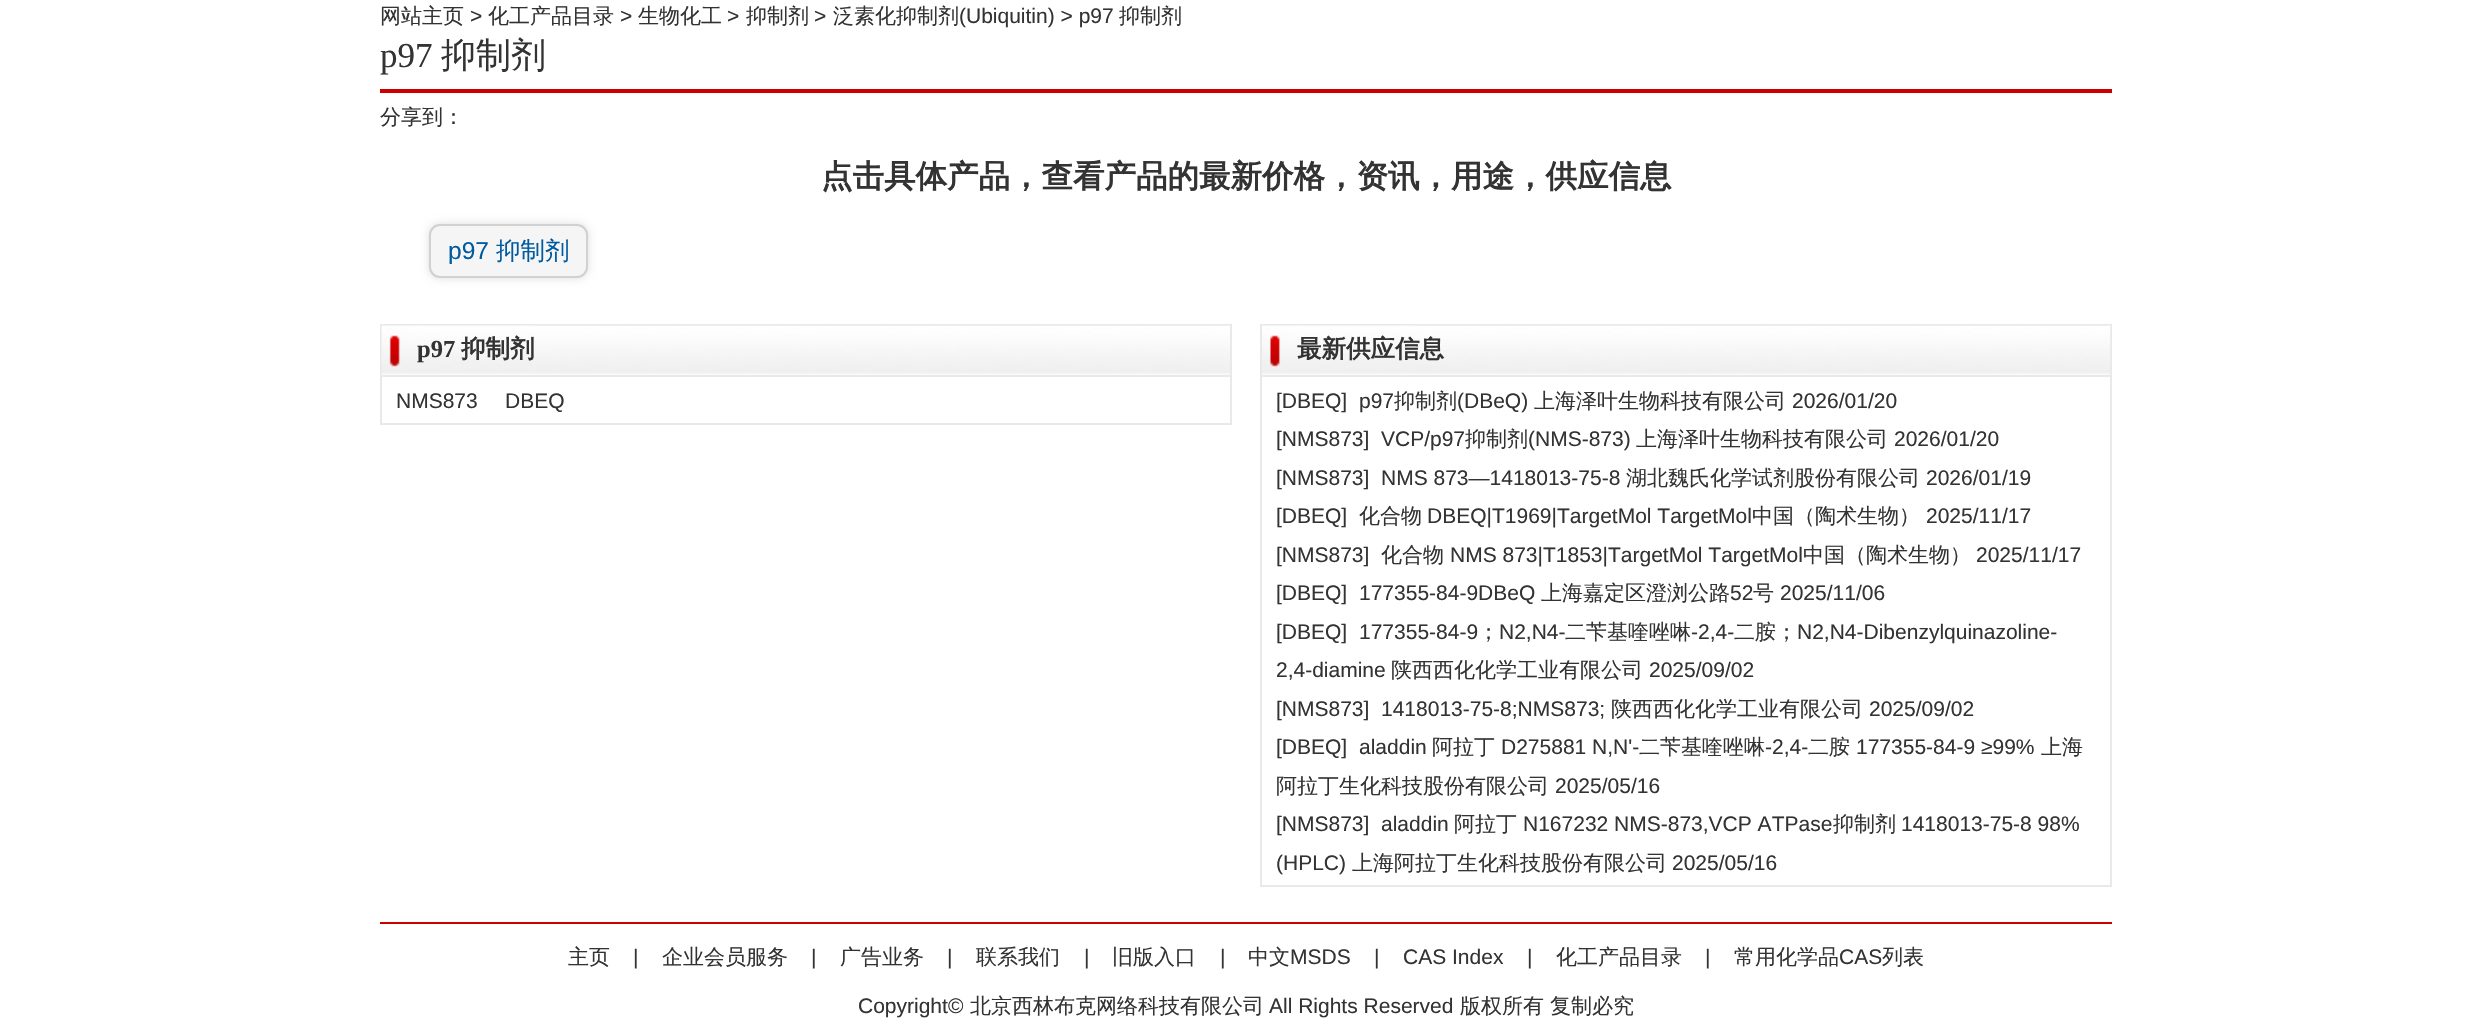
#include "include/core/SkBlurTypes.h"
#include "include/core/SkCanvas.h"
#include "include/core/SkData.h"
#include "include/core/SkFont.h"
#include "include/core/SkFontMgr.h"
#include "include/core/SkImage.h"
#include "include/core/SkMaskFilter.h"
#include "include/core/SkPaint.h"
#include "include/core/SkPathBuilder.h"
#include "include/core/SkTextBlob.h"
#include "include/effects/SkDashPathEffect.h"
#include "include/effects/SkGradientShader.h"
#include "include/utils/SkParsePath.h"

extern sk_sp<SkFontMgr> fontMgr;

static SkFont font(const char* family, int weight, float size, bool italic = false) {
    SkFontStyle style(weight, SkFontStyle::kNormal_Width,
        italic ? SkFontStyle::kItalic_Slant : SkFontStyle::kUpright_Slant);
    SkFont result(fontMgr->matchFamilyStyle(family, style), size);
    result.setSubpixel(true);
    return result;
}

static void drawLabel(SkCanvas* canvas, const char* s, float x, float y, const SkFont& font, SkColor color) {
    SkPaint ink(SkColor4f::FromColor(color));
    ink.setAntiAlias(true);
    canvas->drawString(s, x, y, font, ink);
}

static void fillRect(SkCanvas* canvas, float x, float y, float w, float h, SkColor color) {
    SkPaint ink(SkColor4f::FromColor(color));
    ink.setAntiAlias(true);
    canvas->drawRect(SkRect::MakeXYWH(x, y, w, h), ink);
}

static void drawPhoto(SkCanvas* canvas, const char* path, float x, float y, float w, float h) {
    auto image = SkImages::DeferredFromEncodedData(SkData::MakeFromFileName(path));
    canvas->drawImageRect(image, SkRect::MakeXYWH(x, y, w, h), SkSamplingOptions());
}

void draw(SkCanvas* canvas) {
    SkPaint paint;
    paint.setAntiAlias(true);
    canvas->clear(0xFFFFFFFF);
    SkFont font1 = font("WenQuanYi Zen Hei", 500, 21);
    drawLabel(canvas, "网站主页", 380, 23, font1, 0xFF333333);
    SkFont font2 = font("Liberation Sans", 400, 21);
    drawLabel(canvas, ">", 470, 23, font2, 0xFF333333);
    drawLabel(canvas, "化工产品目录", 488, 23, font1, 0xFF333333);
    drawLabel(canvas, ">", 620, 23, font2, 0xFF333333);
    drawLabel(canvas, "生物化工", 638, 23, font1, 0xFF333333);
    drawLabel(canvas, ">", 727, 23, font2, 0xFF333333);
    drawLabel(canvas, "抑制剂", 746, 23, font1, 0xFF333333);
    drawLabel(canvas, ">", 814, 23, font2, 0xFF333333);
    drawLabel(canvas, "泛素化抑制剂", 833, 23, font1, 0xFF333333);
    drawLabel(canvas, "(Ubiquitin) > p97", 959, 23, font2, 0xFF333333);
    drawLabel(canvas, "抑制剂", 1119, 23, font1, 0xFF333333);
    SkFont font3 = font("Liberation Serif", 400, 35);
    drawLabel(canvas, "p97", 380, 67, font3, 0xFF333333);
    SkFont font4 = font("WenQuanYi Zen Hei", 500, 35);
    drawLabel(canvas, "抑制剂", 441, 67, font4, 0xFF333333);
    fillRect(canvas, 380, 89, 1732, 4, 0xFFCC0000);
    drawLabel(canvas, "分享到：", 380, 124, font1, 0xFF333333);
    SkFont font5 = font("WenQuanYi Zen Hei", 700, 31.5f);
    drawLabel(canvas, "点击具体产品，查看产品的最新价格，资讯，用途，供应信息", 821, 187, font5, 0xFF333333);
    paint.setColor(0xFFDDDDDD);
    paint.setMaskFilter(SkMaskFilter::MakeBlur(kNormal_SkBlurStyle, 4.5f));
    canvas->drawRoundRect(SkRect::MakeXYWH(429, 224, 159, 54), 11, 11, paint);
    paint.setMaskFilter(nullptr);
    paint.setColor(0xFFF5F5F5);
    canvas->drawRoundRect(SkRect::MakeXYWH(430, 225, 157, 52), 10, 10, paint);
    paint.setStroke(true);
    paint.setStrokeWidth(2);
    paint.setColor(0xFFD1D1D1);
    canvas->drawRoundRect(SkRect::MakeXYWH(430, 225, 157, 52), 10, 10, paint);
    SkFont font6 = font("Liberation Sans", 400, 24.5f);
    drawLabel(canvas, "p97", 448, 259, font6, 0xFF005AA0);
    SkFont font7 = font("WenQuanYi Zen Hei", 500, 24.5f);
    drawLabel(canvas, "抑制剂", 496, 259, font7, 0xFF005AA0);
    paint.setColor(0xFFE9E9E9);
    canvas->drawRect(SkRect::MakeXYWH(381, 325, 850, 99), paint);
    drawPhoto(canvas, "assets/img1.png", 381, 325, 849, 51);
    fillRect(canvas, 382, 375, 848, 2, 0xFFE9E9E9);
    drawPhoto(canvas, "assets/img2.png", 381, 325, 154, 42);
    SkFont font8 = font("Liberation Serif", 700, 24.5f);
    drawLabel(canvas, "p97", 417, 357, font8, 0xFF333333);
    SkFont font9 = font("WenQuanYi Zen Hei", 700, 24.5f);
    drawLabel(canvas, "抑制剂", 461, 357, font9, 0xFF333333);
    drawLabel(canvas, "NMS873", 396, 408, font2, 0xFF333333);
    drawLabel(canvas, "DBEQ", 505, 408, font2, 0xFF333333);
    canvas->drawRect(SkRect::MakeXYWH(1261, 325, 850, 561), paint);
    drawPhoto(canvas, "assets/img3.png", 1262, 325, 849, 50);
    fillRect(canvas, 1262, 375, 849, 2, 0xFFE9E9E9);
    drawPhoto(canvas, "assets/img4.png", 1262, 325, 153, 42);
    drawLabel(canvas, "最新供应信息", 1297, 357, font9, 0xFF333333);
    drawLabel(canvas, "[DBEQ]", 1276, 408, font2, 0xFF333333);
    drawLabel(canvas, "p97", 1359, 408, font2, 0xFF333333);
    drawLabel(canvas, "抑制剂", 1394, 408, font1, 0xFF333333);
    drawLabel(canvas, "(DBeQ)", 1457, 408, font2, 0xFF333333);
    drawLabel(canvas, "上海泽叶生物科技有限公司", 1534, 408, font1, 0xFF333333);
    drawLabel(canvas, "2026/01/20", 1792, 408, font2, 0xFF333333);
    drawLabel(canvas, "[NMS873]", 1276, 446, font2, 0xFF333333);
    drawLabel(canvas, "VCP/p97", 1381, 446, font2, 0xFF333333);
    drawLabel(canvas, "抑制剂", 1465, 446, font1, 0xFF333333);
    drawLabel(canvas, "(NMS-873)", 1528, 446, font2, 0xFF333333);
    drawLabel(canvas, "上海泽叶生物科技有限公司", 1636, 446, font1, 0xFF333333);
    drawLabel(canvas, "2026/01/20", 1894, 446, font2, 0xFF333333);
    drawLabel(canvas, "[NMS873]", 1276, 485, font2, 0xFF333333);
    drawLabel(canvas, "NMS 873—1418013-75-8", 1381, 485, font2, 0xFF333333);
    drawLabel(canvas, "湖北魏氏化学试剂股份有限公司", 1626, 485, font1, 0xFF333333);
    drawLabel(canvas, "2026/01/19", 1926, 485, font2, 0xFF333333);
    drawLabel(canvas, "[DBEQ]", 1276, 523, font2, 0xFF333333);
    drawLabel(canvas, "化合物", 1359, 523, font1, 0xFF333333);
    drawLabel(canvas, "DBEQ|T1969|TargetMol TargetMol", 1427, 523, font2, 0xFF333333);
    drawLabel(canvas, "中国（陶术生物）", 1752, 523, font1, 0xFF333333);
    drawLabel(canvas, "2025/11/17", 1926, 523, font2, 0xFF333333);
    drawLabel(canvas, "[NMS873]", 1276, 562, font2, 0xFF333333);
    drawLabel(canvas, "化合物", 1381, 562, font1, 0xFF333333);
    drawLabel(canvas, "NMS 873|T1853|TargetMol TargetMol", 1450, 562, font2, 0xFF333333);
    drawLabel(canvas, "中国（陶术生物）", 1803, 562, font1, 0xFF333333);
    drawLabel(canvas, "2025/11/17", 1976, 562, font2, 0xFF333333);
    drawLabel(canvas, "[DBEQ]", 1276, 600, font2, 0xFF333333);
    drawLabel(canvas, "177355-84-9DBeQ", 1359, 600, font2, 0xFF333333);
    drawLabel(canvas, "上海嘉定区澄浏公路", 1541, 600, font1, 0xFF333333);
    drawLabel(canvas, "52", 1730, 600, font2, 0xFF333333);
    drawLabel(canvas, "号", 1753, 600, font1, 0xFF333333);
    drawLabel(canvas, "2025/11/06", 1780, 600, font2, 0xFF333333);
    drawLabel(canvas, "[DBEQ]", 1276, 639, font2, 0xFF333333);
    drawLabel(canvas, "177355-84-9", 1359, 639, font2, 0xFF333333);
    drawLabel(canvas, "；", 1478, 639, font1, 0xFF333333);
    drawLabel(canvas, "N2,N4-", 1499, 639, font2, 0xFF333333);
    drawLabel(canvas, "二苄基喹唑啉", 1565, 639, font1, 0xFF333333);
    drawLabel(canvas, "-2,4-", 1691, 639, font2, 0xFF333333);
    drawLabel(canvas, "二胺；", 1734, 639, font1, 0xFF333333);
    drawLabel(canvas, "N2,N4-Dibenzylquinazoline-", 1797, 639, font2, 0xFF333333);
    drawLabel(canvas, "2,4-diamine", 1276, 677, font2, 0xFF333333);
    drawLabel(canvas, "陕西西化化学工业有限公司", 1391, 677, font1, 0xFF333333);
    drawLabel(canvas, "2025/09/02", 1649, 677, font2, 0xFF333333);
    drawLabel(canvas, "[NMS873]", 1276, 716, font2, 0xFF333333);
    drawLabel(canvas, "1418013-75-8;NMS873;", 1381, 716, font2, 0xFF333333);
    drawLabel(canvas, "陕西西化化学工业有限公司", 1611, 716, font1, 0xFF333333);
    drawLabel(canvas, "2025/09/02", 1869, 716, font2, 0xFF333333);
    drawLabel(canvas, "[DBEQ]", 1276, 754, font2, 0xFF333333);
    drawLabel(canvas, "aladdin", 1359, 754, font2, 0xFF333333);
    drawLabel(canvas, "阿拉丁", 1432, 754, font1, 0xFF333333);
    drawLabel(canvas, "D275881 N,N'-", 1501, 754, font2, 0xFF333333);
    drawLabel(canvas, "二苄基喹唑啉", 1639, 754, font1, 0xFF333333);
    drawLabel(canvas, "-2,4-", 1765, 754, font2, 0xFF333333);
    drawLabel(canvas, "二胺", 1808, 754, font1, 0xFF333333);
    drawLabel(canvas, "177355-84-9 ≥99%", 1856, 754, font2, 0xFF333333);
    drawLabel(canvas, "上海", 2041, 754, font1, 0xFF333333);
    drawLabel(canvas, "阿拉丁生化科技股份有限公司", 1276, 793, font1, 0xFF333333);
    drawLabel(canvas, "2025/05/16", 1555, 793, font2, 0xFF333333);
    drawLabel(canvas, "[NMS873]", 1276, 831, font2, 0xFF333333);
    drawLabel(canvas, "aladdin", 1381, 831, font2, 0xFF333333);
    drawLabel(canvas, "阿拉丁", 1454, 831, font1, 0xFF333333);
    drawLabel(canvas, "N167232 NMS-873,VCP ATPase", 1523, 831, font2, 0xFF333333);
    drawLabel(canvas, "抑制剂", 1833, 831, font1, 0xFF333333);
    drawLabel(canvas, "1418013-75-8 98%", 1901, 831, font2, 0xFF333333);
    drawLabel(canvas, "(HPLC)", 1276, 870, font2, 0xFF333333);
    drawLabel(canvas, "上海阿拉丁生化科技股份有限公司", 1352, 870, font1, 0xFF333333);
    drawLabel(canvas, "2025/05/16", 1672, 870, font2, 0xFF333333);
    fillRect(canvas, 380, 922, 1732, 2, 0xFFCC0000);
    drawLabel(canvas, "主页", 568, 964, font1, 0xFF333333);
    drawLabel(canvas, "|", 633, 964, font2, 0xFF333333);
    drawLabel(canvas, "企业会员服务", 662, 964, font1, 0xFF333333);
    drawLabel(canvas, "|", 811, 964, font2, 0xFF333333);
    drawLabel(canvas, "广告业务", 840, 964, font1, 0xFF333333);
    drawLabel(canvas, "|", 947, 964, font2, 0xFF333333);
    drawLabel(canvas, "联系我们", 976, 964, font1, 0xFF333333);
    drawLabel(canvas, "|", 1084, 964, font2, 0xFF333333);
    drawLabel(canvas, "旧版入口", 1112, 964, font1, 0xFF333333);
    drawLabel(canvas, "|", 1220, 964, font2, 0xFF333333);
    drawLabel(canvas, "中文", 1248, 964, font1, 0xFF333333);
    drawLabel(canvas, "MSDS", 1290, 964, font2, 0xFF333333);
    drawLabel(canvas, "|", 1374, 964, font2, 0xFF333333);
    drawLabel(canvas, "CAS Index", 1403, 964, font2, 0xFF333333);
    drawLabel(canvas, "|", 1527, 964, font2, 0xFF333333);
    drawLabel(canvas, "化工产品目录", 1556, 964, font1, 0xFF333333);
    drawLabel(canvas, "|", 1705, 964, font2, 0xFF333333);
    drawLabel(canvas, "常用化学品", 1734, 964, font1, 0xFF333333);
    drawLabel(canvas, "CAS", 1839, 964, font2, 0xFF333333);
    drawLabel(canvas, "列表", 1882, 964, font1, 0xFF333333);
    drawLabel(canvas, "Copyright©", 858, 1013, font2, 0xFF333333);
    drawLabel(canvas, "北京西林布克网络科技有限公司", 970, 1013, font1, 0xFF333333);
    drawLabel(canvas, "All Rights Reserved", 1269, 1013, font2, 0xFF333333);
    drawLabel(canvas, "版权所有", 1460, 1013, font1, 0xFF333333);
    drawLabel(canvas, "复制必究", 1550, 1013, font1, 0xFF333333);
}
